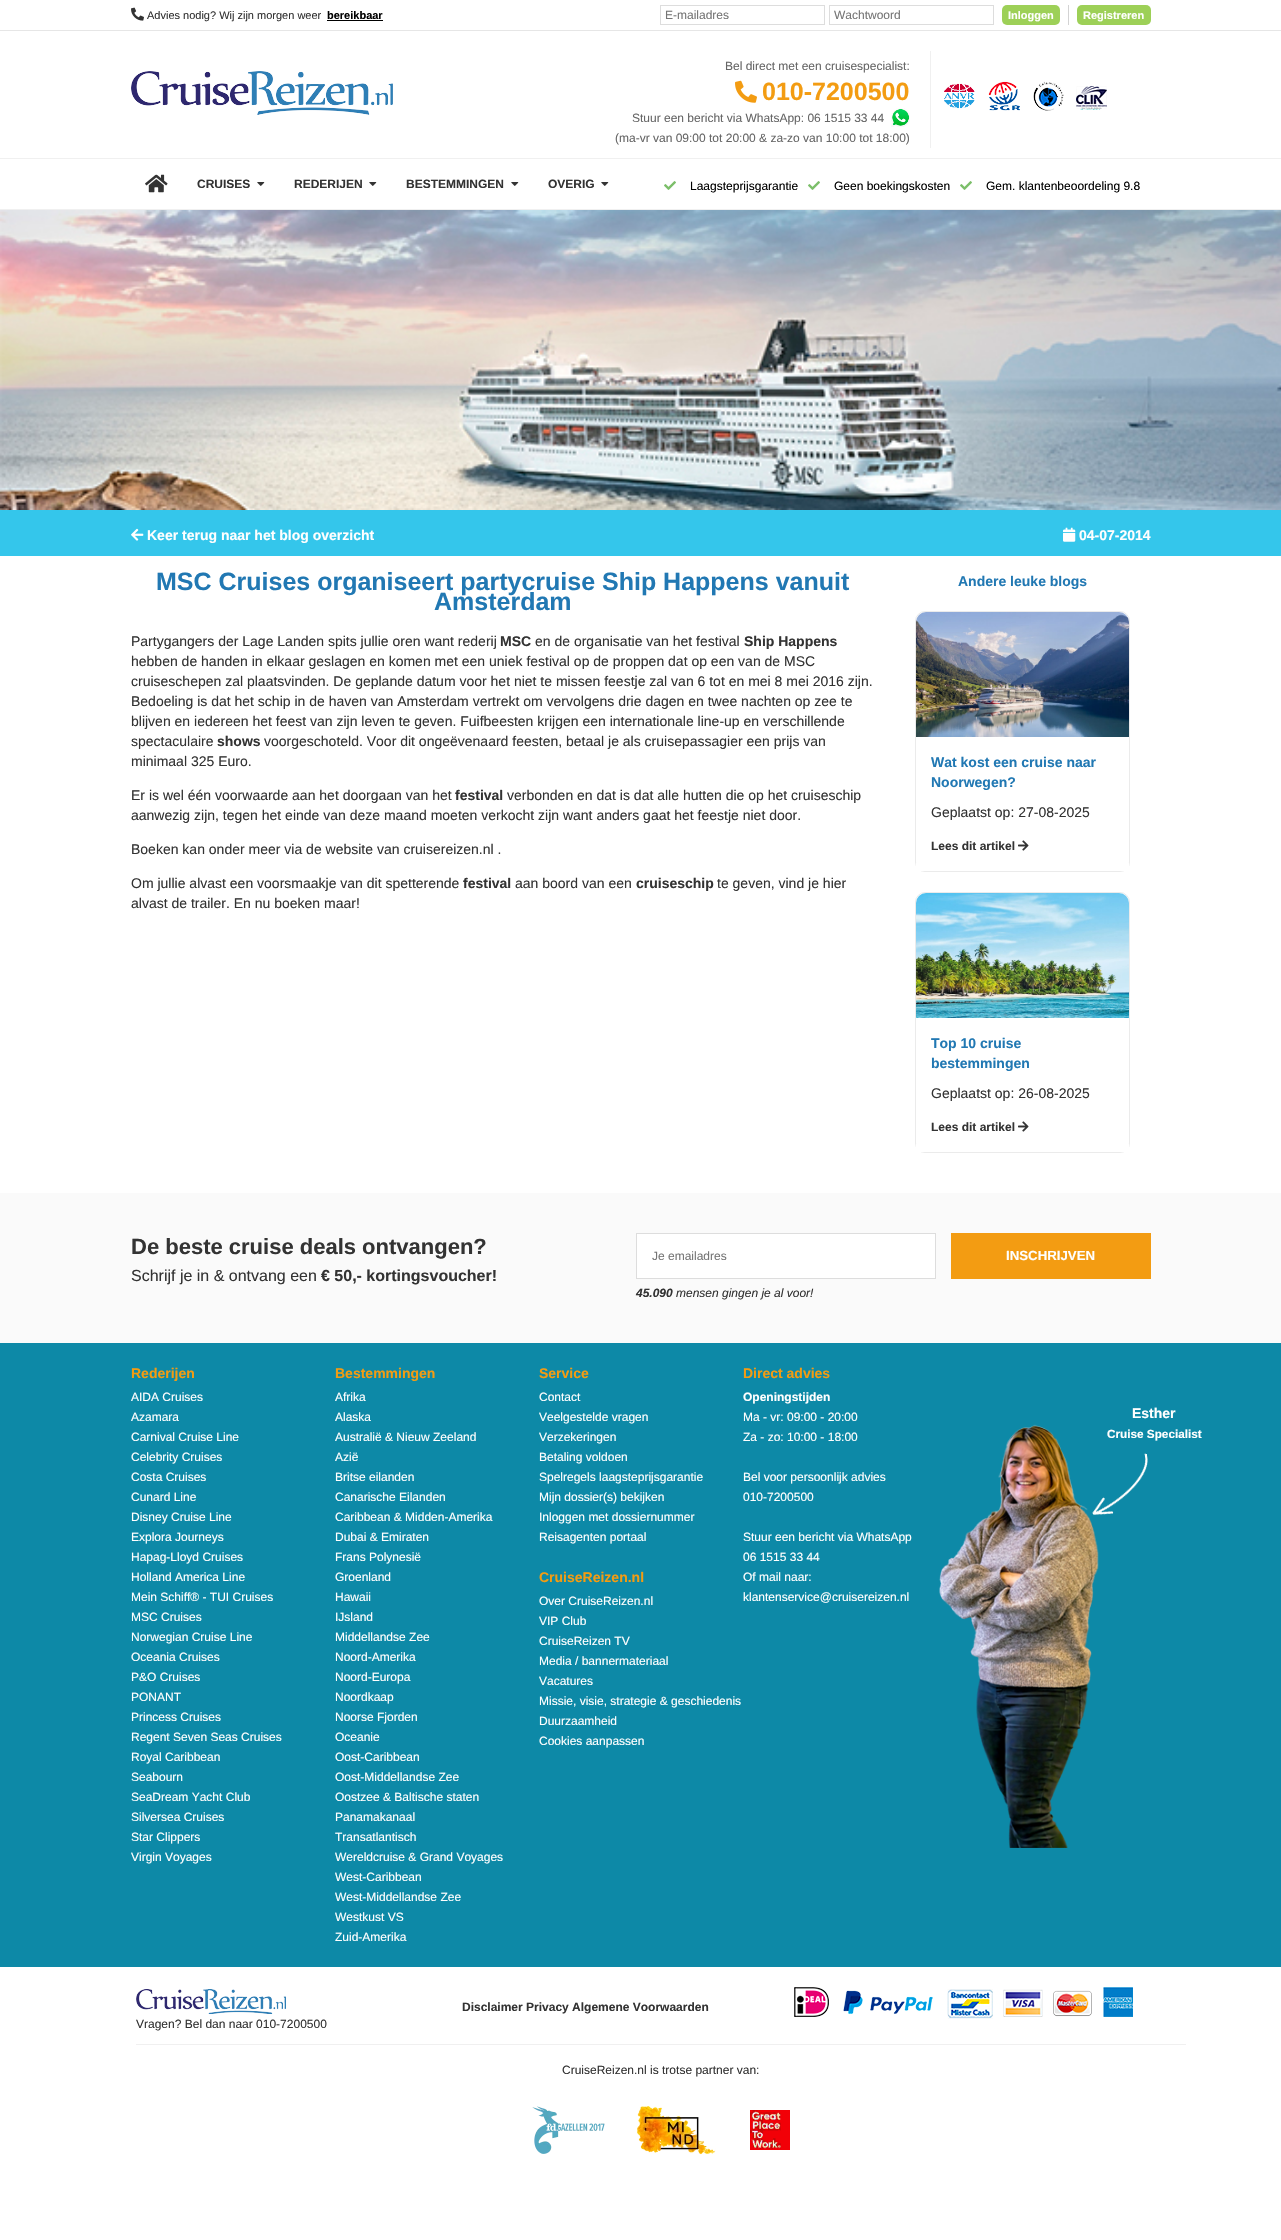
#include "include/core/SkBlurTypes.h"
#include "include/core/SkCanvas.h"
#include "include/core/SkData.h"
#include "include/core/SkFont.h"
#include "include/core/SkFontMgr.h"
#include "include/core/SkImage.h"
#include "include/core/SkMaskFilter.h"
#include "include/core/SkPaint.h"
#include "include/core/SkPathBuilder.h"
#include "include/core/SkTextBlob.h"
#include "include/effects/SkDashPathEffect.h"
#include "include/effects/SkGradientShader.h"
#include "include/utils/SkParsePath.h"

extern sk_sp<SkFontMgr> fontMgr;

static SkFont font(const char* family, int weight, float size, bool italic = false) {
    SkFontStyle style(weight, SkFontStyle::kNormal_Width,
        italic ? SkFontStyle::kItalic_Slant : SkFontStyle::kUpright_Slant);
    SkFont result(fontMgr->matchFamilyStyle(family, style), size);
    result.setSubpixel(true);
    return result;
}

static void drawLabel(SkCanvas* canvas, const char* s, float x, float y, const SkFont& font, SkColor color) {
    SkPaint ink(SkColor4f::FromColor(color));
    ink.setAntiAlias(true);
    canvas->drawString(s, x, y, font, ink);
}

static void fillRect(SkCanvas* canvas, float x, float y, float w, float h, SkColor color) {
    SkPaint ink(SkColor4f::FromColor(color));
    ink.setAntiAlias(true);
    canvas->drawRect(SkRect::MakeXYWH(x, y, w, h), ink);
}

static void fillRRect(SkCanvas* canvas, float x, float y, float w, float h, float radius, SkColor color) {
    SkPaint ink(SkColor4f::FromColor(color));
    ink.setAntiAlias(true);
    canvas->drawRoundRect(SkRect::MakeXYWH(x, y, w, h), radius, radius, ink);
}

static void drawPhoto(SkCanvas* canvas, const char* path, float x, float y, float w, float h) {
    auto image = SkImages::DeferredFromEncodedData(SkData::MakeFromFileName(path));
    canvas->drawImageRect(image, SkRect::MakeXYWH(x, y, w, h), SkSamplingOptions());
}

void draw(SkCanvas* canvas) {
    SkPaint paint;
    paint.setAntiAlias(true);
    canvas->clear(0xFFFFFFFF);
    fillRect(canvas, 0, 30, 1281, 1, 0xFFE6E6E6);
    drawPhoto(canvas, "assets/img1.png", 131, 7, 13, 14);
    SkFont font1 = font("Liberation Sans", 400, 11);
    drawLabel(canvas, "Advies nodig? Wij zijn morgen weer", 147, 19, font1, 0xFF333333);
    SkFont font2 = font("Liberation Sans", 700, 11);
    drawLabel(canvas, "bereikbaar", 327, 19, font2, 0xFF000000);
    fillRect(canvas, 327, 20, 56, 1, 0xFF000000);
    paint.setStroke(true);
    paint.setStrokeWidth(1);
    paint.setColor(0xFFDDDDDD);
    canvas->drawRect(SkRect::MakeXYWH(660.5f, 5.5f, 164, 19), paint);
    SkFont font3 = font("Liberation Sans", 400, 12);
    drawLabel(canvas, "E-mailadres", 665, 19, font3, 0xFF757575);
    canvas->drawRect(SkRect::MakeXYWH(829.5f, 5.5f, 164, 19), paint);
    drawLabel(canvas, "Wachtwoord", 834, 19, font3, 0xFF757575);
    fillRRect(canvas, 1002, 5, 58, 20, 5, 0xFF9DD057);
    drawLabel(canvas, "Inloggen", 1008, 19, font2, 0xFFFFFFFF);
    fillRect(canvas, 1068, 5, 1, 20, 0xFFD3D3D3);
    fillRRect(canvas, 1077, 5, 74, 20, 5, 0xFF9DD057);
    drawLabel(canvas, "Registreren", 1083, 19, font2, 0xFFFFFFFF);
    drawPhoto(canvas, "assets/img2.png", 131, 71, 262, 44);
    fillRect(canvas, 930, 51, 1, 97, 0xFFF0F0F0);
    drawLabel(canvas, "Bel direct met een cruisespecialist:", 725, 70, font3, 0xFF666666);
    drawPhoto(canvas, "assets/img3.png", 735, 80, 22, 23);
    SkFont font4 = font("Liberation Sans", 700, 25);
    drawLabel(canvas, "010-7200500", 762, 100, font4, 0xFFF39C12);
    drawLabel(canvas, "Stuur een bericht via WhatsApp: 06 1515 33 44", 632, 122, font3, 0xFF666666);
    drawPhoto(canvas, "assets/img4.png", 891, 108, 19, 19);
    drawLabel(canvas, "(ma-vr van 09:00 tot 20:00 & za-zo van 10:00 tot 18:00)", 615, 142, font3, 0xFF666666);
    drawPhoto(canvas, "assets/img5.png", 944, 83, 31, 26);
    drawPhoto(canvas, "assets/img6.png", 988, 81, 32, 30);
    drawPhoto(canvas, "assets/img7.png", 1033, 81, 31, 30);
    drawPhoto(canvas, "assets/img8.png", 1076, 86, 31, 24);
    fillRect(canvas, 0, 158, 1281, 1, 0xFFF0F0F0);
    fillRect(canvas, 0, 209, 1281, 1, 0xFFF0F0F0);
    drawPhoto(canvas, "assets/img9.png", 145, 174, 23, 19);
    SkFont font5 = font("Liberation Sans", 700, 12);
    drawLabel(canvas, "CRUISES", 197, 188, font5, 0xFF333333);
    drawPhoto(canvas, "assets/img10.png", 257, 182, 8, 4);
    drawLabel(canvas, "REDERIJEN", 294, 188, font5, 0xFF333333);
    drawPhoto(canvas, "assets/img10.png", 369, 182, 8, 4);
    drawLabel(canvas, "BESTEMMINGEN", 406, 188, font5, 0xFF333333);
    drawPhoto(canvas, "assets/img10.png", 511, 182, 8, 4);
    drawLabel(canvas, "OVERIG", 548, 188, font5, 0xFF333333);
    drawPhoto(canvas, "assets/img10.png", 601, 182, 8, 4);
    drawPhoto(canvas, "assets/img11.png", 664, 181, 12, 9);
    drawLabel(canvas, "Laagsteprijsgarantie", 690, 190, font3, 0xFF000000);
    drawPhoto(canvas, "assets/img11.png", 808, 181, 12, 9);
    drawLabel(canvas, "Geen boekingskosten", 834, 190, font3, 0xFF000000);
    drawPhoto(canvas, "assets/img11.png", 960, 181, 12, 9);
    drawLabel(canvas, "Gem. klantenbeoordeling 9.8", 986, 190, font3, 0xFF000000);
    drawPhoto(canvas, "assets/img12.png", 0, 210, 1281, 300);
    fillRect(canvas, 0, 510, 1281, 46, 0xFF34C6EB);
    drawPhoto(canvas, "assets/img13.png", 131, 528, 13, 13);
    SkFont font6 = font("Liberation Sans", 700, 14);
    drawLabel(canvas, "Keer terug naar het blog overzicht", 147, 540, font6, 0xFFFFFFFF);
    drawPhoto(canvas, "assets/img14.png", 1063, 527, 13, 15);
    drawLabel(canvas, "04-07-2014", 1079, 540, font6, 0xFFFFFFFF);
    drawLabel(canvas, "MSC Cruises organiseert partycruise Ship Happens vanuit", 156, 590, font4, 0xFF2178B3);
    drawLabel(canvas, "Amsterdam", 434, 610, font4, 0xFF2178B3);
    SkFont font7 = font("Liberation Sans", 400, 14);
    drawLabel(canvas, "Partygangers der Lage Landen spits jullie oren want rederij", 131, 646, font7, 0xFF333333);
    drawLabel(canvas, "MSC", 500, 646, font6, 0xFF333333);
    drawLabel(canvas, "en de organisatie van het festival", 535, 646, font7, 0xFF333333);
    drawLabel(canvas, "Ship Happens", 744, 646, font6, 0xFF333333);
    drawLabel(canvas, "hebben de handen in elkaar geslagen en komen met een uniek festival op de proppen dat op een van de MSC", 131, 666, font7, 0xFF333333);
    drawLabel(canvas, "cruiseschepen zal plaatsvinden. De geplande datum voor het niet te missen feestje zal van 6 tot en mei 8 mei 2016 zijn.", 131, 686, font7, 0xFF333333);
    drawLabel(canvas, "Bedoeling is dat het schip in de haven van Amsterdam vertrekt om vervolgens drie dagen en twee nachten op zee te", 131, 706, font7, 0xFF333333);
    drawLabel(canvas, "blijven en iedereen het feest van zijn leven te geven. Fuifbeesten krijgen een internationale line-up en verschillende", 131, 726, font7, 0xFF333333);
    drawLabel(canvas, "spectaculaire", 131, 746, font7, 0xFF333333);
    drawLabel(canvas, "shows", 217, 746, font6, 0xFF333333);
    drawLabel(canvas, "voorgeschoteld. Voor dit ongeëvenaard feesten, betaal je als cruisepassagier een prijs van", 264, 746, font7, 0xFF333333);
    drawLabel(canvas, "minimaal 325 Euro.", 131, 766, font7, 0xFF333333);
    drawLabel(canvas, "Er is wel één voorwaarde aan het doorgaan van het", 131, 800, font7, 0xFF333333);
    drawLabel(canvas, "festival", 455, 800, font6, 0xFF333333);
    drawLabel(canvas, "verbonden en dat is dat alle hutten die op het cruiseschip", 507, 800, font7, 0xFF333333);
    drawLabel(canvas, "aanwezig zijn, tegen het einde van deze maand moeten verkocht zijn want anders gaat het feestje niet door.", 131, 820, font7, 0xFF333333);
    drawLabel(canvas, "Boeken kan onder meer via de website van cruisereizen.nl .", 131, 854, font7, 0xFF333333);
    drawLabel(canvas, "Om jullie alvast een voorsmaakje van dit spetterende", 131, 888, font7, 0xFF333333);
    drawLabel(canvas, "festival", 463, 888, font6, 0xFF333333);
    drawLabel(canvas, "aan boord van een", 515, 888, font7, 0xFF333333);
    drawLabel(canvas, "cruiseschip", 636, 888, font6, 0xFF333333);
    drawLabel(canvas, "te geven, vind je hier", 717, 888, font7, 0xFF333333);
    drawLabel(canvas, "alvast de trailer. En nu boeken maar!", 131, 908, font7, 0xFF333333);
    drawLabel(canvas, "Andere leuke blogs", 958, 586, font6, 0xFF2178B3);
    paint.setColor(0xFFEBEBEB);
    canvas->drawRoundRect(SkRect::MakeXYWH(915.5f, 611.5f, 214, 260), 9.5f, 9.5f, paint);
    drawPhoto(canvas, "assets/img15.png", 916, 612, 213, 125);
    fillRect(canvas, 916, 863, 213, 8, 0xFFFFFFFF);
    drawLabel(canvas, "Wat kost een cruise naar", 931, 767, font6, 0xFF2178B3);
    drawLabel(canvas, "Noorwegen?", 931, 787, font6, 0xFF2178B3);
    drawLabel(canvas, "Geplaatst op: 27-08-2025", 931, 817, font7, 0xFF333333);
    drawLabel(canvas, "Lees dit artikel", 931, 850, font5, 0xFF333333);
    drawPhoto(canvas, "assets/img16.png", 1018, 840, 11, 11);
    canvas->drawRoundRect(SkRect::MakeXYWH(915.5f, 892.5f, 214, 260), 9.5f, 9.5f, paint);
    drawPhoto(canvas, "assets/img17.png", 916, 893, 213, 125);
    fillRect(canvas, 916, 1144, 213, 8, 0xFFFFFFFF);
    drawLabel(canvas, "Top 10 cruise", 931, 1048, font6, 0xFF2178B3);
    drawLabel(canvas, "bestemmingen", 931, 1068, font6, 0xFF2178B3);
    drawLabel(canvas, "Geplaatst op: 26-08-2025", 931, 1098, font7, 0xFF333333);
    drawLabel(canvas, "Lees dit artikel", 931, 1131, font5, 0xFF333333);
    drawPhoto(canvas, "assets/img16.png", 1018, 1121, 11, 11);
    fillRect(canvas, 0, 1193, 1281, 150, 0xFFFAFAFA);
    SkFont font8 = font("Liberation Sans", 700, 22);
    drawLabel(canvas, "De beste cruise deals ontvangen?", 131, 1254, font8, 0xFF333333);
    SkFont font9 = font("Liberation Sans", 400, 16);
    drawLabel(canvas, "Schrijf je in & ontvang een", 131, 1281, font9, 0xFF333333);
    SkFont font10 = font("Liberation Sans", 700, 16);
    drawLabel(canvas, "€ 50,- kortingsvoucher!", 321, 1281, font10, 0xFF333333);
    paint.setStroke(false);
    paint.setColor(0xFFFFFFFF);
    canvas->drawRect(SkRect::MakeXYWH(636.5f, 1233.5f, 299, 45), paint);
    paint.setStroke(true);
    paint.setColor(0xFFDDDDDD);
    canvas->drawRect(SkRect::MakeXYWH(636.5f, 1233.5f, 299, 45), paint);
    drawLabel(canvas, "Je emailadres", 652, 1260, font3, 0xFF757575);
    SkFont font11 = font("Liberation Sans", 700, 12, true);
    drawLabel(canvas, "45.090", 636, 1297, font11, 0xFF333333);
    SkFont font12 = font("Liberation Sans", 400, 12, true);
    drawLabel(canvas, "mensen gingen je al voor!", 676, 1297, font12, 0xFF333333);
    fillRect(canvas, 951, 1233, 200, 46, 0xFFF39C12);
    SkFont font13 = font("Liberation Sans", 700, 13.25f);
    drawLabel(canvas, "INSCHRIJVEN", 1006, 1260, font13, 0xFFFFFFFF);
    fillRect(canvas, 0, 1343, 1281, 624, 0xFF0D89A7);
    drawLabel(canvas, "Rederijen", 131, 1378, font6, 0xFFF39C12);
    drawLabel(canvas, "AIDA Cruises", 131, 1401, font3, 0xFFFFFFFF);
    drawLabel(canvas, "Azamara", 131, 1421, font3, 0xFFFFFFFF);
    drawLabel(canvas, "Carnival Cruise Line", 131, 1441, font3, 0xFFFFFFFF);
    drawLabel(canvas, "Celebrity Cruises", 131, 1461, font3, 0xFFFFFFFF);
    drawLabel(canvas, "Costa Cruises", 131, 1481, font3, 0xFFFFFFFF);
    drawLabel(canvas, "Cunard Line", 131, 1501, font3, 0xFFFFFFFF);
    drawLabel(canvas, "Disney Cruise Line", 131, 1521, font3, 0xFFFFFFFF);
    drawLabel(canvas, "Explora Journeys", 131, 1541, font3, 0xFFFFFFFF);
    drawLabel(canvas, "Hapag-Lloyd Cruises", 131, 1561, font3, 0xFFFFFFFF);
    drawLabel(canvas, "Holland America Line", 131, 1581, font3, 0xFFFFFFFF);
    drawLabel(canvas, "Mein Schiff® - TUI Cruises", 131, 1601, font3, 0xFFFFFFFF);
    drawLabel(canvas, "MSC Cruises", 131, 1621, font3, 0xFFFFFFFF);
    drawLabel(canvas, "Norwegian Cruise Line", 131, 1641, font3, 0xFFFFFFFF);
    drawLabel(canvas, "Oceania Cruises", 131, 1661, font3, 0xFFFFFFFF);
    drawLabel(canvas, "P&O Cruises", 131, 1681, font3, 0xFFFFFFFF);
    drawLabel(canvas, "PONANT", 131, 1701, font3, 0xFFFFFFFF);
    drawLabel(canvas, "Princess Cruises", 131, 1721, font3, 0xFFFFFFFF);
    drawLabel(canvas, "Regent Seven Seas Cruises", 131, 1741, font3, 0xFFFFFFFF);
    drawLabel(canvas, "Royal Caribbean", 131, 1761, font3, 0xFFFFFFFF);
    drawLabel(canvas, "Seabourn", 131, 1781, font3, 0xFFFFFFFF);
    drawLabel(canvas, "SeaDream Yacht Club", 131, 1801, font3, 0xFFFFFFFF);
    drawLabel(canvas, "Silversea Cruises", 131, 1821, font3, 0xFFFFFFFF);
    drawLabel(canvas, "Star Clippers", 131, 1841, font3, 0xFFFFFFFF);
    drawLabel(canvas, "Virgin Voyages", 131, 1861, font3, 0xFFFFFFFF);
    drawLabel(canvas, "Bestemmingen", 335, 1378, font6, 0xFFF39C12);
    drawLabel(canvas, "Afrika", 335, 1401, font3, 0xFFFFFFFF);
    drawLabel(canvas, "Alaska", 335, 1421, font3, 0xFFFFFFFF);
    drawLabel(canvas, "Australië & Nieuw Zeeland", 335, 1441, font3, 0xFFFFFFFF);
    drawLabel(canvas, "Azië", 335, 1461, font3, 0xFFFFFFFF);
    drawLabel(canvas, "Britse eilanden", 335, 1481, font3, 0xFFFFFFFF);
    drawLabel(canvas, "Canarische Eilanden", 335, 1501, font3, 0xFFFFFFFF);
    drawLabel(canvas, "Caribbean & Midden-Amerika", 335, 1521, font3, 0xFFFFFFFF);
    drawLabel(canvas, "Dubai & Emiraten", 335, 1541, font3, 0xFFFFFFFF);
    drawLabel(canvas, "Frans Polynesië", 335, 1561, font3, 0xFFFFFFFF);
    drawLabel(canvas, "Groenland", 335, 1581, font3, 0xFFFFFFFF);
    drawLabel(canvas, "Hawaii", 335, 1601, font3, 0xFFFFFFFF);
    drawLabel(canvas, "IJsland", 335, 1621, font3, 0xFFFFFFFF);
    drawLabel(canvas, "Middellandse Zee", 335, 1641, font3, 0xFFFFFFFF);
    drawLabel(canvas, "Noord-Amerika", 335, 1661, font3, 0xFFFFFFFF);
    drawLabel(canvas, "Noord-Europa", 335, 1681, font3, 0xFFFFFFFF);
    drawLabel(canvas, "Noordkaap", 335, 1701, font3, 0xFFFFFFFF);
    drawLabel(canvas, "Noorse Fjorden", 335, 1721, font3, 0xFFFFFFFF);
    drawLabel(canvas, "Oceanie", 335, 1741, font3, 0xFFFFFFFF);
    drawLabel(canvas, "Oost-Caribbean", 335, 1761, font3, 0xFFFFFFFF);
    drawLabel(canvas, "Oost-Middellandse Zee", 335, 1781, font3, 0xFFFFFFFF);
    drawLabel(canvas, "Oostzee & Baltische staten", 335, 1801, font3, 0xFFFFFFFF);
    drawLabel(canvas, "Panamakanaal", 335, 1821, font3, 0xFFFFFFFF);
    drawLabel(canvas, "Transatlantisch", 335, 1841, font3, 0xFFFFFFFF);
    drawLabel(canvas, "Wereldcruise & Grand Voyages", 335, 1861, font3, 0xFFFFFFFF);
    drawLabel(canvas, "West-Caribbean", 335, 1881, font3, 0xFFFFFFFF);
    drawLabel(canvas, "West-Middellandse Zee", 335, 1901, font3, 0xFFFFFFFF);
    drawLabel(canvas, "Westkust VS", 335, 1921, font3, 0xFFFFFFFF);
    drawLabel(canvas, "Zuid-Amerika", 335, 1941, font3, 0xFFFFFFFF);
    drawLabel(canvas, "Service", 539, 1378, font6, 0xFFF39C12);
    drawLabel(canvas, "Contact", 539, 1401, font3, 0xFFFFFFFF);
    drawLabel(canvas, "Veelgestelde vragen", 539, 1421, font3, 0xFFFFFFFF);
    drawLabel(canvas, "Verzekeringen", 539, 1441, font3, 0xFFFFFFFF);
    drawLabel(canvas, "Betaling voldoen", 539, 1461, font3, 0xFFFFFFFF);
    drawLabel(canvas, "Spelregels laagsteprijsgarantie", 539, 1481, font3, 0xFFFFFFFF);
    drawLabel(canvas, "Mijn dossier(s) bekijken", 539, 1501, font3, 0xFFFFFFFF);
    drawLabel(canvas, "Inloggen met dossiernummer", 539, 1521, font3, 0xFFFFFFFF);
    drawLabel(canvas, "Reisagenten portaal", 539, 1541, font3, 0xFFFFFFFF);
    drawLabel(canvas, "CruiseReizen.nl", 539, 1582, font6, 0xFFF39C12);
    drawLabel(canvas, "Over CruiseReizen.nl", 539, 1605, font3, 0xFFFFFFFF);
    drawLabel(canvas, "VIP Club", 539, 1625, font3, 0xFFFFFFFF);
    drawLabel(canvas, "CruiseReizen TV", 539, 1645, font3, 0xFFFFFFFF);
    drawLabel(canvas, "Media / bannermateriaal", 539, 1665, font3, 0xFFFFFFFF);
    drawLabel(canvas, "Vacatures", 539, 1685, font3, 0xFFFFFFFF);
    drawLabel(canvas, "Missie, visie, strategie & geschiedenis", 539, 1705, font3, 0xFFFFFFFF);
    drawLabel(canvas, "Duurzaamheid", 539, 1725, font3, 0xFFFFFFFF);
    drawLabel(canvas, "Cookies aanpassen", 539, 1745, font3, 0xFFFFFFFF);
    drawLabel(canvas, "Direct advies", 743, 1378, font6, 0xFFF39C12);
    drawLabel(canvas, "Openingstijden", 743, 1401, font5, 0xFFFFFFFF);
    drawLabel(canvas, "Ma - vr: 09:00 - 20:00", 743, 1421, font3, 0xFFFFFFFF);
    drawLabel(canvas, "Za - zo: 10:00 - 18:00", 743, 1441, font3, 0xFFFFFFFF);
    drawLabel(canvas, "Bel voor persoonlijk advies", 743, 1481, font3, 0xFFFFFFFF);
    drawLabel(canvas, "010-7200500", 743, 1501, font3, 0xFFFFFFFF);
    drawLabel(canvas, "Stuur een bericht via WhatsApp", 743, 1541, font3, 0xFFFFFFFF);
    drawLabel(canvas, "06 1515 33 44", 743, 1561, font3, 0xFFFFFFFF);
    drawLabel(canvas, "Of mail naar:", 743, 1581, font3, 0xFFFFFFFF);
    drawLabel(canvas, "klantenservice@cruisereizen.nl", 743, 1601, font3, 0xFFFFFFFF);
    drawPhoto(canvas, "assets/img18.png", 939, 1424, 160, 424);
    drawLabel(canvas, "Esther", 1132, 1418, font6, 0xFFFFFFFF);
    SkFont font14 = font("Liberation Sans", 700, 11.75f);
    drawLabel(canvas, "Cruise Specialist", 1107, 1438, font14, 0xFFFFFFFF);
    drawPhoto(canvas, "assets/img19.png", 1092, 1453, 56, 62);
    drawLabel(canvas, "Disclaimer Privacy Algemene Voorwaarden", 462, 2011, font5, 0xFF333333);
    drawPhoto(canvas, "assets/img20.png", 794, 1987, 35, 30);
    drawPhoto(canvas, "assets/img21.png", 843, 1990, 90, 24);
    drawPhoto(canvas, "assets/img22.png", 947, 1989, 46, 30);
    drawPhoto(canvas, "assets/img23.png", 1003, 1989, 40, 28);
    drawPhoto(canvas, "assets/img24.png", 1053, 1990, 39, 27);
    drawPhoto(canvas, "assets/img25.png", 1103, 1987, 30, 30);
    drawPhoto(canvas, "assets/img26.png", 136, 1989, 150, 25);
    drawLabel(canvas, "Vragen? Bel dan naar 010-7200500", 136, 2028, font3, 0xFF333333);
    fillRect(canvas, 136, 2044, 1050, 1, 0xFFF0F0F0);
    drawLabel(canvas, "CruiseReizen.nl is trotse partner van:", 562, 2074, font3, 0xFF333333);
    drawPhoto(canvas, "assets/img27.png", 532, 2106, 73, 48);
    drawPhoto(canvas, "assets/img28.png", 636, 2106, 80, 49);
    drawPhoto(canvas, "assets/img29.png", 750, 2110, 40, 40);
}
